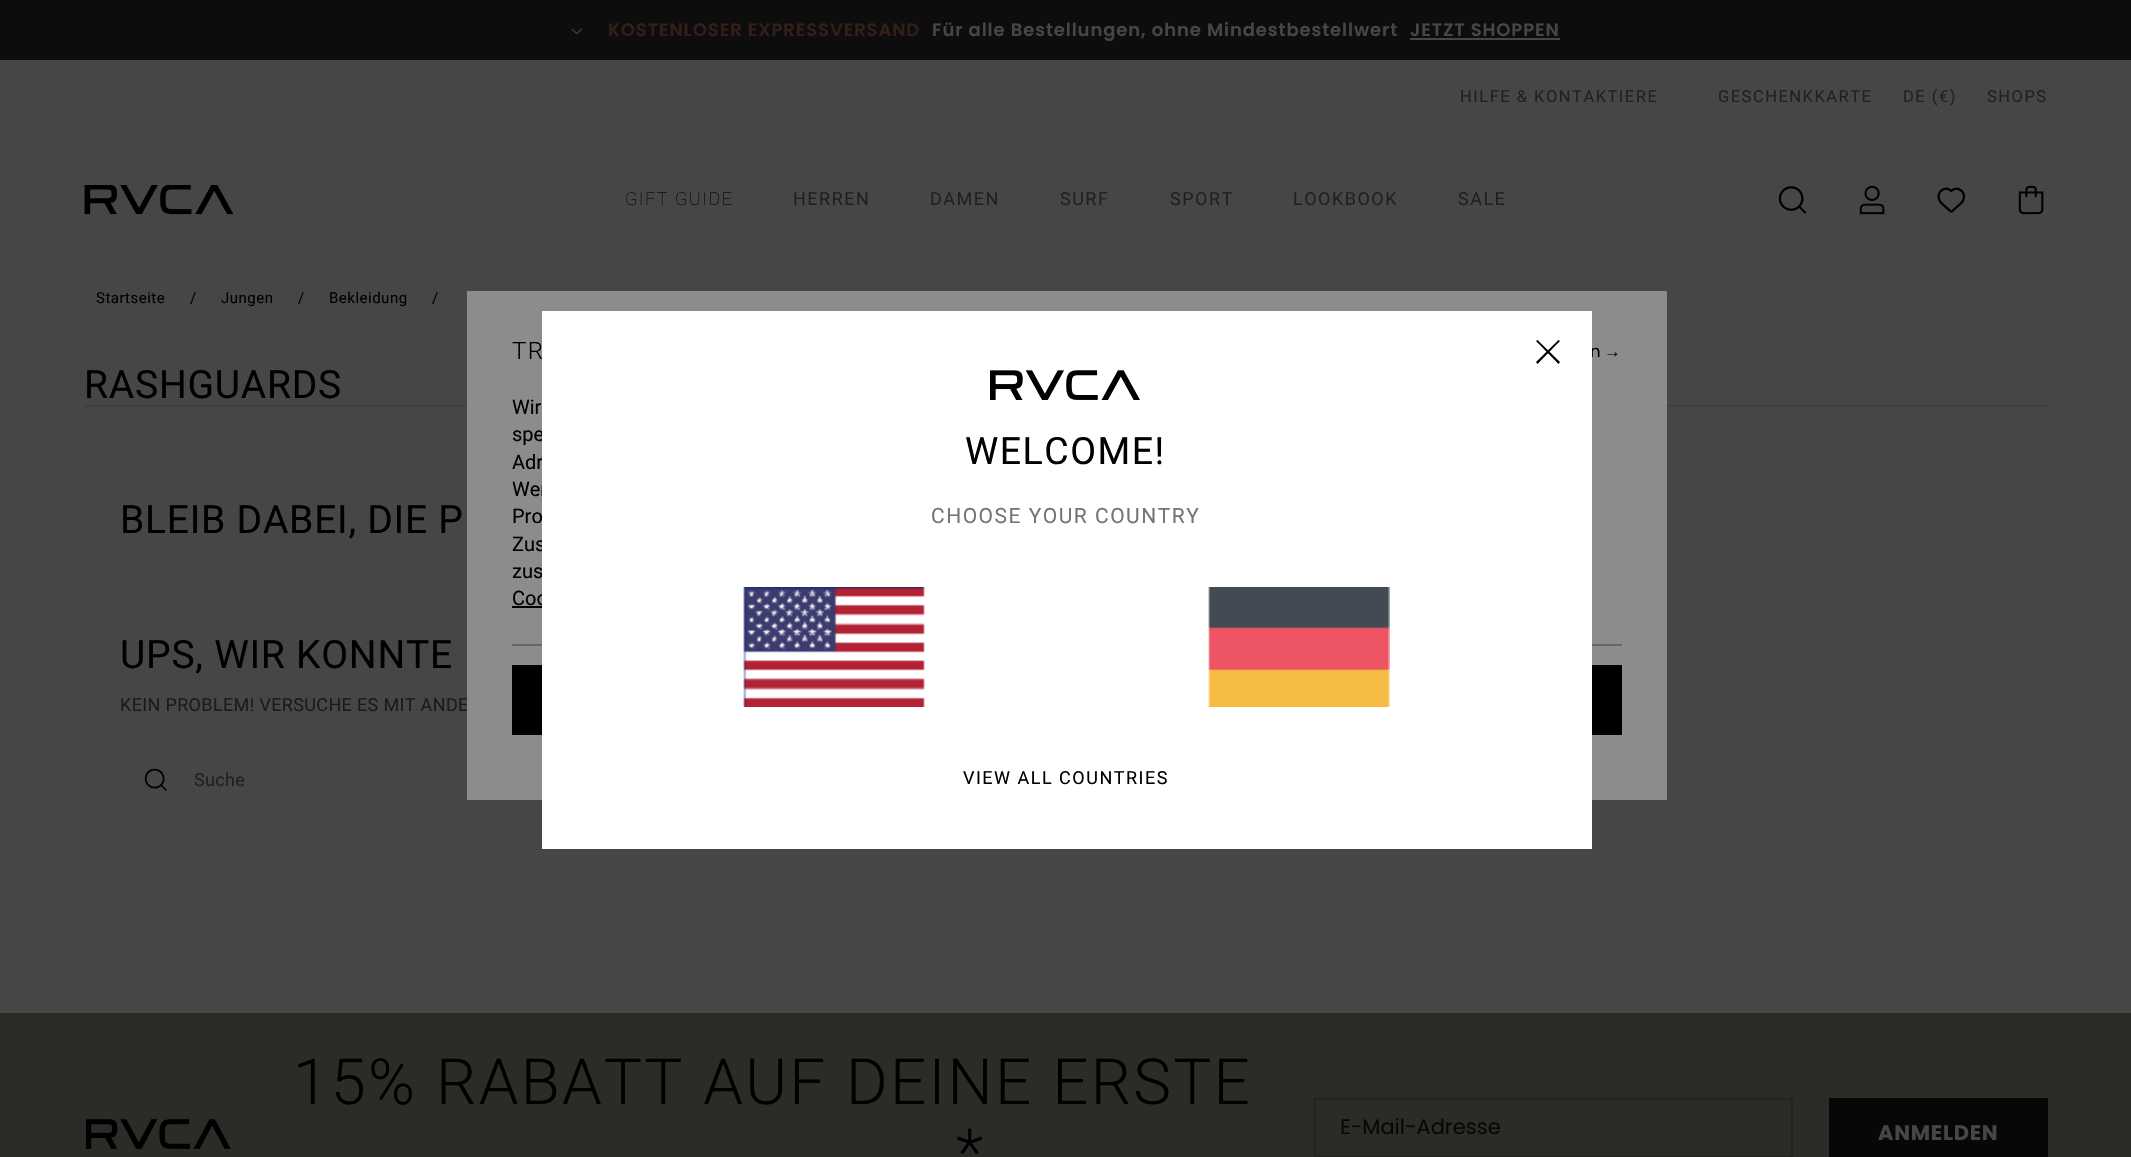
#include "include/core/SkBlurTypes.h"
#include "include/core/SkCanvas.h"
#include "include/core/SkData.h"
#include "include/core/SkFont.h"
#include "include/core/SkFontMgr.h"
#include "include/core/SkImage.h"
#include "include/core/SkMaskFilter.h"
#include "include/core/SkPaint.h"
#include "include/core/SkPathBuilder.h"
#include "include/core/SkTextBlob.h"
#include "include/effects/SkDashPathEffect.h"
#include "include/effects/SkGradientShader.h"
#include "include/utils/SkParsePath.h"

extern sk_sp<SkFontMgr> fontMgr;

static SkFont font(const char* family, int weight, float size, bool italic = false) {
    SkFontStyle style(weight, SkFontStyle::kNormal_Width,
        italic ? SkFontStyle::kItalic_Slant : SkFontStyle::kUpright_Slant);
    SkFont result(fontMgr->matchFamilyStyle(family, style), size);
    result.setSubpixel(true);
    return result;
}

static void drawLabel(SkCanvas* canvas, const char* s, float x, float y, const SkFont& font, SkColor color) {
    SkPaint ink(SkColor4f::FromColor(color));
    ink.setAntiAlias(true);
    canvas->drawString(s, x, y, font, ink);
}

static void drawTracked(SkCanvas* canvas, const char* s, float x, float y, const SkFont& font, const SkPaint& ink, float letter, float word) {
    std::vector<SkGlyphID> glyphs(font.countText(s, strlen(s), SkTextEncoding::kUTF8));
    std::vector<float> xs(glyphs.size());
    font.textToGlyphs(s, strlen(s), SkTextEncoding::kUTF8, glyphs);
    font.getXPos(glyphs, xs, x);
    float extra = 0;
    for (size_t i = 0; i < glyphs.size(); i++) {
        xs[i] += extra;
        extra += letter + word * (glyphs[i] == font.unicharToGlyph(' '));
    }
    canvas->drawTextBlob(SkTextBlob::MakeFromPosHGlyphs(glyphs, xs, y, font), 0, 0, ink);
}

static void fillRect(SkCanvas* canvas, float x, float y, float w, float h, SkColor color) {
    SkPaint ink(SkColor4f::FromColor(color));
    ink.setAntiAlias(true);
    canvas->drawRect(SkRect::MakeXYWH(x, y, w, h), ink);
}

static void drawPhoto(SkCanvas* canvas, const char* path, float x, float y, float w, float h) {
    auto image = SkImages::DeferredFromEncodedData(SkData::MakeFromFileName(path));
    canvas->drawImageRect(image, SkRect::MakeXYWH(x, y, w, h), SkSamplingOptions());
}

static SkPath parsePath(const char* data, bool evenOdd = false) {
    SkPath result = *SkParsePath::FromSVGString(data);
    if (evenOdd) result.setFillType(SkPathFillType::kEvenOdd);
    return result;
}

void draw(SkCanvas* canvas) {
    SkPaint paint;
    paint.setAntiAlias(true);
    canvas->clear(0xFF464646);
    fillRect(canvas, 0, 0, 2131, 60, 0xFF0D0D0D);
    drawPhoto(canvas, "assets/img1.png", 572, 28, 10, 7);
    SkFont font1 = font("Poppins", 600, 18);
    paint.setColor(0xFF341E19);
    drawTracked(canvas, "KOSTENLOSER EXPRESSVERSAND", 608, 36, font1, paint, 0.9f, 0);
    paint.setColor(0xFF464646);
    drawTracked(canvas, "Für alle Bestellungen, ohne Mindestbestellwert", 932, 36, font1, paint, 0.9f, 0);
    drawTracked(canvas, "JETZT SHOPPEN", 1410, 36, font1, paint, 0.9f, 0);
    fillRect(canvas, 1410, 38, 150, 2, 0xFF464646);
    fillRect(canvas, 0, 134, 2131, 1, 0xFF414141);
    SkFont font2 = font("Roboto", 400, 16.5f);
    paint.setColor(0xFF202020);
    drawTracked(canvas, "HILFE & KONTAKTIERE", 1460, 102, font2, paint, 1.5f, 0);
    drawTracked(canvas, "GESCHENKKARTE", 1718, 102, font2, paint, 1.5f, 0);
    drawTracked(canvas, "DE (€)", 1903, 102, font2, paint, 1.5f, 0);
    drawTracked(canvas, "SHOPS", 1987, 102, font2, paint, 1.5f, 0);
    drawPhoto(canvas, "assets/img2.png", 84, 185, 150, 30);
    SkFont font3 = font("Roboto", 100, 18);
    paint.setColor(0xFF000000);
    drawTracked(canvas, "GIFT GUIDE", 625, 205, font3, paint, 1.5f, 0);
    SkFont font4 = font("Roboto", 400, 18);
    paint.setColor(0xFF202020);
    drawTracked(canvas, "HERREN", 793, 205, font4, paint, 1.5f, 0);
    drawTracked(canvas, "DAMEN", 930, 205, font4, paint, 1.5f, 0);
    drawTracked(canvas, "SURF", 1060, 205, font4, paint, 1.5f, 0);
    drawTracked(canvas, "SPORT", 1170, 205, font4, paint, 1.5f, 0);
    drawTracked(canvas, "LOOKBOOK", 1293, 205, font4, paint, 1.5f, 0);
    drawTracked(canvas, "SALE", 1458, 205, font4, paint, 1.5f, 0);
    drawPhoto(canvas, "assets/img3.png", 1778, 186, 29, 28);
    drawPhoto(canvas, "assets/img4.png", 1859, 185, 26, 30);
    drawPhoto(canvas, "assets/img5.png", 1937, 187, 29, 26);
    drawPhoto(canvas, "assets/img6.png", 2018, 185, 26, 30);
    SkFont font5 = font("Roboto", 400, 15);
    paint.setColor(0xFF000000);
    drawTracked(canvas, "Startseite", 96, 303, font5, paint, 0.5f, 0);
    drawTracked(canvas, "/", 190, 303, font5, paint, 0.5f, 0);
    drawTracked(canvas, "Jungen", 221, 303, font5, paint, 0.5f, 0);
    drawTracked(canvas, "/", 298, 303, font5, paint, 0.5f, 0);
    drawTracked(canvas, "Bekleidung", 329, 303, font5, paint, 0.5f, 0);
    drawTracked(canvas, "/", 432, 303, font5, paint, 0.5f, 0);
    SkFont font6 = font("Roboto", 400, 39);
    drawTracked(canvas, "RASHGUARDS", 84, 398, font6, paint, 0.75f, 0);
    fillRect(canvas, 84, 405, 1964, 2, 0xFF3F3F3F);
    drawTracked(canvas, "BLEIB DABEI, DIE P", 120, 533, font6, paint, 0.75f, 0);
    drawTracked(canvas, "UPS, WIR KONNTE", 120, 668, font6, paint, 0.75f, 0);
    paint.setColor(0xFF1A1A1A);
    drawTracked(canvas, "KEIN PROBLEM! VERSUCHE ES MIT ANDE", 120, 711, font4, paint, 0.35f, 0);
    drawPhoto(canvas, "assets/img7.png", 144, 768, 23, 23);
    paint.setColor(0xFF202020);
    drawTracked(canvas, "Suche", 194, 786, font4, paint, 0.35f, 0);
    fillRect(canvas, 467, 291, 1200, 509, 0xFF8C8C8C);
    SkFont font7 = font("Roboto", 300, 24);
    paint.setColor(0xFF000000);
    drawTracked(canvas, "TR", 512, 359, font7, paint, 1.5f, 0);
    SkFont font8 = font("Roboto", 400, 20);
    drawLabel(canvas, "Wir", 512, 414, font8, 0xFF000000);
    drawLabel(canvas, "spe", 512, 441, font8, 0xFF000000);
    drawLabel(canvas, "Adr", 512, 469, font8, 0xFF000000);
    drawLabel(canvas, "Wer", 512, 496, font8, 0xFF000000);
    drawLabel(canvas, "Pro", 512, 523, font8, 0xFF000000);
    drawLabel(canvas, "Zus", 512, 551, font8, 0xFF000000);
    drawLabel(canvas, "zus", 512, 578, font8, 0xFF000000);
    drawLabel(canvas, "Coo", 512, 605, font8, 0xFF000000);
    fillRect(canvas, 512, 606, 30, 2, 0xFF000000);
    fillRect(canvas, 512, 644, 1110, 2, 0xFF676767);
    SkFont font9 = font("Poppins", 400, 16.5f);
    drawTracked(canvas, "n", 1590, 357, font9, paint, 1, 0);
    SkFont font10 = font("Liberation Sans", 400, 16.5f);
    drawTracked(canvas, "→", 1604, 357, font10, paint, 1, 0);
    fillRect(canvas, 512, 665, 30, 70, 0xFF000000);
    fillRect(canvas, 1592, 665, 30, 70, 0xFF000000);
    fillRect(canvas, 542, 311, 1050, 538, 0xFFFFFFFF);
    canvas->drawPath(parsePath("M1536 341L1537.5 340L1560 362L1558.5 364ZM1536 362L1558.5 340L1560 341L1537.5 364Z"), paint);
    drawPhoto(canvas, "assets/img8.png", 990, 370, 150, 30);
    SkFont font11 = font("Roboto", 400, 37.5f);
    drawTracked(canvas, "WELCOME!", 965, 464, font11, paint, 1.5f, 0);
    SkFont font12 = font("Roboto", 400, 21);
    paint.setColor(0xFF757575);
    drawTracked(canvas, "CHOOSE YOUR COUNTRY", 931, 523, font12, paint, 1.5f, 0);
    drawPhoto(canvas, "assets/img9.png", 743, 587, 182, 120);
    drawPhoto(canvas, "assets/img10.png", 1208, 587, 182, 120);
    paint.setColor(0xFF000000);
    drawTracked(canvas, "VIEW ALL COUNTRIES", 963, 784, font4, paint, 1.5f, 0);
    fillRect(canvas, 0, 1013, 2131, 144, 0xFF292C27);
    drawPhoto(canvas, "assets/img11.png", 86, 1119, 145, 30);
    SkFont font13 = font("Roboto", 300, 63.6f);
    drawTracked(canvas, "15% RABATT AUF DEINE ERSTE", 293, 1104, font13, paint, 2.25f, 1);
    drawTracked(canvas, "*", 956, 1174, font13, paint, 2.25f, 4);
    paint.setStroke(true);
    paint.setStrokeWidth(2);
    paint.setColor(0xFF222420);
    canvas->drawRect(SkRect::MakeXYWH(1315, 1099, 477, 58), paint);
    SkFont font14 = font("Poppins", 400, 21);
    drawLabel(canvas, "E-Mail-Adresse", 1340, 1134, font14, 0xFF070707);
    fillRect(canvas, 1829, 1098, 219, 59, 0xFF070707);
    SkFont font15 = font("Poppins", 700, 21);
    paint.setStroke(false);
    paint.setColor(0xFF464646);
    drawTracked(canvas, "ANMELDEN", 1878, 1140, font15, paint, 0.75f, 0);
}
